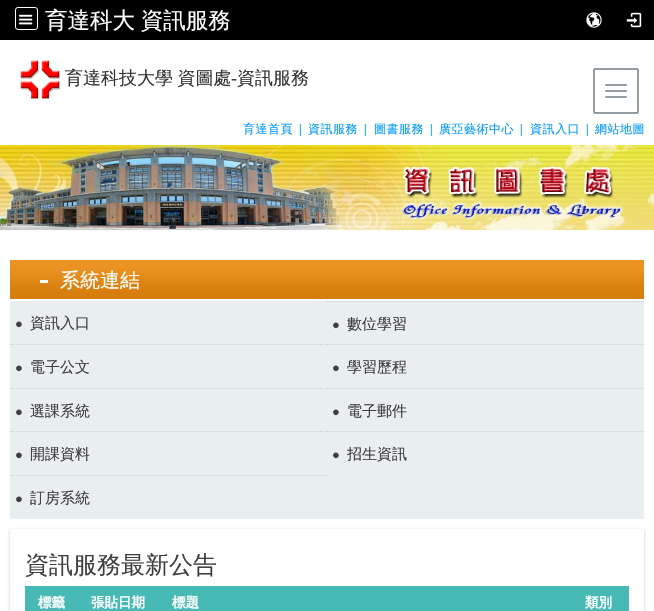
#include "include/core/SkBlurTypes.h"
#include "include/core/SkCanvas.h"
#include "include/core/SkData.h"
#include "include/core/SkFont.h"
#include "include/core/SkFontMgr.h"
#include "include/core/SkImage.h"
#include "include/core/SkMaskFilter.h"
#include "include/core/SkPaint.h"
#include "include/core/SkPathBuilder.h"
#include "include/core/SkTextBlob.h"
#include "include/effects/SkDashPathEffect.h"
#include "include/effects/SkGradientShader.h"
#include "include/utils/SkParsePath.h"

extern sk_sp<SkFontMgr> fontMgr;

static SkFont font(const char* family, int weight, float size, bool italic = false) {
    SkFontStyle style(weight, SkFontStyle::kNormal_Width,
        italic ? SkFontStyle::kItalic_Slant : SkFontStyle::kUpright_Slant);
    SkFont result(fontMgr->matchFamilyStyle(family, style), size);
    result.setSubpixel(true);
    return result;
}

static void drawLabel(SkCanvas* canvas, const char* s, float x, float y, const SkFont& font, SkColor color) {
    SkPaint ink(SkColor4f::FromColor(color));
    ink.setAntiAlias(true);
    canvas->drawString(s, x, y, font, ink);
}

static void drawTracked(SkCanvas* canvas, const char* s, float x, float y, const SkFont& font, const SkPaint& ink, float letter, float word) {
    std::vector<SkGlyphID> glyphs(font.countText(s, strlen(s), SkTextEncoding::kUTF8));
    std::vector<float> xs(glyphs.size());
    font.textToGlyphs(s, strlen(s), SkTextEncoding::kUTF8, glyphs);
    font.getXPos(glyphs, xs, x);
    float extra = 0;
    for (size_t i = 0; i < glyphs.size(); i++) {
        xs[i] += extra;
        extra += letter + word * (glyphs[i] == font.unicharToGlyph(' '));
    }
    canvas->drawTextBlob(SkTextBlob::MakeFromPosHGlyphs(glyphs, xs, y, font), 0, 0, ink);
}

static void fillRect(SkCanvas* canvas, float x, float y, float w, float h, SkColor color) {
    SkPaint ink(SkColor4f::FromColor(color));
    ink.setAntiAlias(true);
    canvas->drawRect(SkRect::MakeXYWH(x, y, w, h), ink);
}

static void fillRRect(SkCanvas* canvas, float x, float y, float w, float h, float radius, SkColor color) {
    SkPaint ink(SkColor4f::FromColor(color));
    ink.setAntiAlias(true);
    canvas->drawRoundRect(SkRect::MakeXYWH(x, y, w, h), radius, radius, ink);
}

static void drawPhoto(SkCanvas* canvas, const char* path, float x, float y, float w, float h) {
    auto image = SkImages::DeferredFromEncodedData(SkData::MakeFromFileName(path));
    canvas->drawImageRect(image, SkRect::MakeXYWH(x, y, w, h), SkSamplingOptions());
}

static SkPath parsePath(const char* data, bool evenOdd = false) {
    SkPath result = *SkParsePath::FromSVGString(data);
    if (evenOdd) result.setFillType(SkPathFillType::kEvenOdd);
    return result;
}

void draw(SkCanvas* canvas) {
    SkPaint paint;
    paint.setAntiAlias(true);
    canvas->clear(0xFFFFFFFF);
    fillRect(canvas, 0, 0, 654, 40, 0xFF000000);
    paint.setStroke(true);
    paint.setStrokeWidth(1);
    paint.setColor(0xFFFFFFFF);
    canvas->drawRoundRect(SkRect::MakeXYWH(15.5f, 7.5f, 22, 22), 2.5f, 2.5f, paint);
    drawPhoto(canvas, "assets/img1.png", 18, 14, 15, 11);
    SkFont font1 = font("WenQuanYi Zen Hei", 500, 22.5f);
    paint.setStroke(false);
    drawTracked(canvas, "育達科大 資訊服務", 45, 28, font1, paint, 0, -1);
    drawPhoto(canvas, "assets/img2.png", 586, 12, 16, 16);
    drawPhoto(canvas, "assets/img3.png", 626, 12, 16, 16);
    drawPhoto(canvas, "assets/img4.png", 20, 60, 40, 39);
    SkFont font2 = font("WenQuanYi Zen Hei", 500, 18);
    paint.setColor(0xFF333333);
    drawTracked(canvas, "育達科技大學 資圖處", 65, 84, font2, paint, 0, -1);
    SkFont font3 = font("Liberation Serif", 400, 18);
    drawLabel(canvas, "-", 231, 84, font3, 0xFF333333);
    drawLabel(canvas, "資訊服務", 237, 84, font2, 0xFF333333);
    paint.setStroke(true);
    paint.setStrokeWidth(2);
    paint.setColor(0xFF949DA2);
    canvas->drawRoundRect(SkRect::MakeXYWH(594, 69, 44, 44), 1, 1, paint);
    fillRRect(canvas, 605, 84, 22, 2, 1, 0xFF949DA2);
    fillRRect(canvas, 605, 90, 22, 2, 1, 0xFF949DA2);
    fillRRect(canvas, 605, 96, 22, 2, 1, 0xFF949DA2);
    SkFont font4 = font("WenQuanYi Zen Hei", 500, 12);
    paint.setStroke(false);
    paint.setColor(0xFF0099FF);
    drawTracked(canvas, "育達首頁", 243, 133, font4, paint, 0.5f, 0);
    SkFont font5 = font("Open Sans", 400, 12);
    drawTracked(canvas, "|", 297, 133, font5, paint, 0.5f, 0);
    drawTracked(canvas, "資訊服務", 308, 133, font4, paint, 0.5f, 0);
    drawTracked(canvas, "|", 362, 133, font5, paint, 0.5f, 0);
    drawTracked(canvas, "圖書服務", 374, 133, font4, paint, 0.5f, 0);
    drawTracked(canvas, "|", 428, 133, font5, paint, 0.5f, 0);
    drawTracked(canvas, "廣亞藝術中心", 439, 133, font4, paint, 0.5f, 0);
    drawTracked(canvas, "|", 518, 133, font5, paint, 0.5f, 0);
    drawTracked(canvas, "資訊入口", 530, 133, font4, paint, 0.5f, 0);
    drawTracked(canvas, "|", 584, 133, font5, paint, 0.5f, 0);
    drawTracked(canvas, "網站地圖", 595, 133, font4, paint, 0.5f, 0);
    drawPhoto(canvas, "assets/img5.png", 0, 145, 654, 85);
    drawPhoto(canvas, "assets/img6.png", 10, 260, 634, 39);
    fillRect(canvas, 40, 280, 8, 3, 0xFFFFFFFF);
    SkFont font6 = font("WenQuanYi Zen Hei", 500, 20);
    drawLabel(canvas, "系統連結", 60, 287, font6, 0xFFFFFFFF);
    fillRect(canvas, 10, 301, 634, 218, 0xFFE9EEF1);
    SkFont font7 = font("Liberation Serif", 400, 13);
    drawLabel(canvas, "●", 15, 328, font7, 0xFF3F3F3F);
    SkFont font8 = font("WenQuanYi Zen Hei", 500, 15);
    drawLabel(canvas, "資訊入口", 30, 328, font8, 0xFF3F3F3F);
    paint.setStroke(true);
    paint.setStrokeWidth(1);
    paint.setColor(0xFFCECECE);
    paint.setPathEffect(SkDashPathEffect::Make({{1, 1}}, 0));
    canvas->drawPath(parsePath("M327 301.5H644"), paint);
    paint.setPathEffect(nullptr);
    drawLabel(canvas, "●", 332, 329, font7, 0xFF3F3F3F);
    drawLabel(canvas, "數位學習", 347, 329, font8, 0xFF3F3F3F);
    paint.setPathEffect(SkDashPathEffect::Make({{1, 1}}, 0));
    canvas->drawPath(parsePath("M10 344.5H327"), paint);
    paint.setPathEffect(nullptr);
    drawLabel(canvas, "●", 15, 372, font7, 0xFF3F3F3F);
    drawLabel(canvas, "電子公文", 30, 372, font8, 0xFF3F3F3F);
    paint.setPathEffect(SkDashPathEffect::Make({{1, 1}}, 0));
    canvas->drawPath(parsePath("M327 344.5H644"), paint);
    paint.setPathEffect(nullptr);
    drawLabel(canvas, "●", 332, 372, font7, 0xFF3F3F3F);
    drawLabel(canvas, "學習歷程", 347, 372, font8, 0xFF3F3F3F);
    paint.setPathEffect(SkDashPathEffect::Make({{1, 1}}, 0));
    canvas->drawPath(parsePath("M10 388.5H327"), paint);
    paint.setPathEffect(nullptr);
    drawLabel(canvas, "●", 15, 416, font7, 0xFF3F3F3F);
    drawLabel(canvas, "選課系統", 30, 416, font8, 0xFF3F3F3F);
    paint.setPathEffect(SkDashPathEffect::Make({{1, 1}}, 0));
    canvas->drawPath(parsePath("M327 388.5H644"), paint);
    paint.setPathEffect(nullptr);
    drawLabel(canvas, "●", 332, 416, font7, 0xFF3F3F3F);
    drawLabel(canvas, "電子郵件", 347, 416, font8, 0xFF3F3F3F);
    paint.setPathEffect(SkDashPathEffect::Make({{1, 1}}, 0));
    canvas->drawPath(parsePath("M10 431.5H327"), paint);
    paint.setPathEffect(nullptr);
    drawLabel(canvas, "●", 15, 459, font7, 0xFF3F3F3F);
    drawLabel(canvas, "開課資料", 30, 459, font8, 0xFF3F3F3F);
    paint.setPathEffect(SkDashPathEffect::Make({{1, 1}}, 0));
    canvas->drawPath(parsePath("M327 431.5H644"), paint);
    paint.setPathEffect(nullptr);
    drawLabel(canvas, "●", 332, 459, font7, 0xFF3F3F3F);
    drawLabel(canvas, "招生資訊", 347, 459, font8, 0xFF3F3F3F);
    paint.setPathEffect(SkDashPathEffect::Make({{1, 1}}, 0));
    canvas->drawPath(parsePath("M10 475.5H327"), paint);
    paint.setPathEffect(nullptr);
    drawLabel(canvas, "●", 15, 503, font7, 0xFF3F3F3F);
    drawLabel(canvas, "訂房系統", 30, 503, font8, 0xFF3F3F3F);
    canvas->save();
    canvas->clipPath(parsePath("M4 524H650V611H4ZM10 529H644V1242H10Z", true), true);
    paint.setStroke(false);
    paint.setColor(0x33000000);
    paint.setMaskFilter(SkMaskFilter::MakeBlur(kNormal_SkBlurStyle, 1.5f));
    canvas->drawRect(SkRect::MakeXYWH(10, 530, 634, 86), paint);
    paint.setMaskFilter(nullptr);
    canvas->restore();
    SkFont font9 = font("WenQuanYi Zen Hei", 500, 24);
    drawLabel(canvas, "資訊服務最新公告", 25, 573, font9, 0xFF3F3F3F);
    fillRect(canvas, 25, 586, 604, 25, 0xFF47BAB5);
    SkFont font10 = font("WenQuanYi Zen Hei", 700, 13.5f);
    drawLabel(canvas, "標籤", 38, 607, font10, 0xFFFFFFFF);
    drawLabel(canvas, "張貼日期", 91, 607, font10, 0xFFFFFFFF);
    drawLabel(canvas, "標題", 172, 607, font10, 0xFFFFFFFF);
    drawLabel(canvas, "類別", 585, 607, font10, 0xFFFFFFFF);
}
